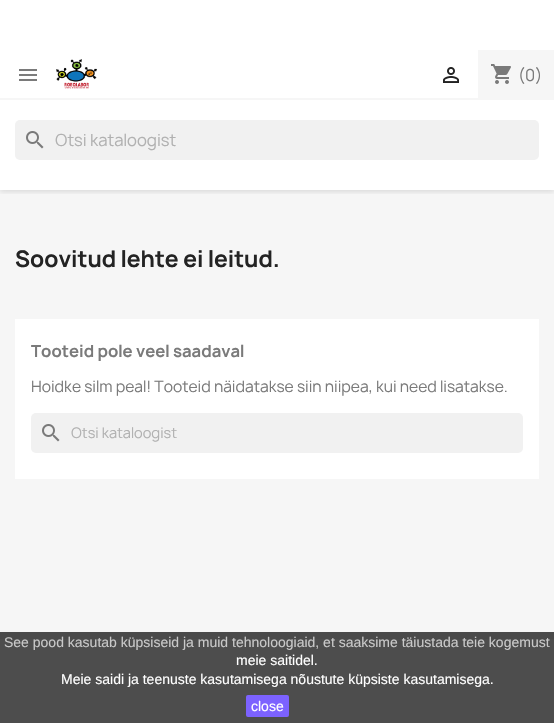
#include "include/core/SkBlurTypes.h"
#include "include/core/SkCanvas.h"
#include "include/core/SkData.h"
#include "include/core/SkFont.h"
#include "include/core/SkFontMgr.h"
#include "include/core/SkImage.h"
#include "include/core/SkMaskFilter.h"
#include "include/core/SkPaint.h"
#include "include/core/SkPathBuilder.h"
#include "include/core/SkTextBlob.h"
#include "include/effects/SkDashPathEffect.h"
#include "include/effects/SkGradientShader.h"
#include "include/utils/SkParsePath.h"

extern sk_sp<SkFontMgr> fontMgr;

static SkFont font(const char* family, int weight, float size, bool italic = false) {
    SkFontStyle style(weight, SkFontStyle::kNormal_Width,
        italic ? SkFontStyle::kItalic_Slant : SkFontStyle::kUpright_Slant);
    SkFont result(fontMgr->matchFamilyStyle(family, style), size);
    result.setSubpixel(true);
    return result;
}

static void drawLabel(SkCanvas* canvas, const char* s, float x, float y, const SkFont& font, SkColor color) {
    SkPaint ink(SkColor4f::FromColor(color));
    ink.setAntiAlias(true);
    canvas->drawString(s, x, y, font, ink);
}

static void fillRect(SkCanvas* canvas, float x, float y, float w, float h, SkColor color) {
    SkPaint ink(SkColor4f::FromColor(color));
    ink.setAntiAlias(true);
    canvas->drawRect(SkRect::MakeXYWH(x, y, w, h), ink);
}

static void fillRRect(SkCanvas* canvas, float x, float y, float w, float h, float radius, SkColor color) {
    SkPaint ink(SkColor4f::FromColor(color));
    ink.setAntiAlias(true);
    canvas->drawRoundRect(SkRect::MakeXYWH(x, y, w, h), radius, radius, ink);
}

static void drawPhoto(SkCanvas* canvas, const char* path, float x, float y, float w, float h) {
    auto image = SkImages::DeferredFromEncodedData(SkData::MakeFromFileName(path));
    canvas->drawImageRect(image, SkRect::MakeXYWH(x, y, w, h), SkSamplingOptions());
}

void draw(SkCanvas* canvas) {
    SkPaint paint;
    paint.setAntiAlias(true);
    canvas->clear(0xFFFFFFFF);
    fillRect(canvas, 0, 639, 554, 84, 0xFF4D4D4D);
    fillRect(canvas, 0, 190, 554, 442, 0xFFF6F6F6);
    canvas->save();
    canvas->clipRect(SkRect::MakeXYWH(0, 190, 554, 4));
    paint.setColor(0x1C000000);
    paint.setMaskFilter(SkMaskFilter::MakeBlur(kNormal_SkBlurStyle, 2.5f));
    canvas->drawRect(SkRect::MakeXYWH(0, 52, 554, 140), paint);
    paint.setMaskFilter(nullptr);
    canvas->restore();
    fillRect(canvas, 0, 98, 554, 2, 0xFFF6F6F6);
    drawPhoto(canvas, "assets/img1.png", 19, 69, 18, 12);
    drawPhoto(canvas, "assets/img2.png", 56, 59, 41, 30);
    drawPhoto(canvas, "assets/img3.png", 443, 67, 16, 16);
    fillRect(canvas, 478, 50, 76, 48, 0xFFF6F6F6);
    drawPhoto(canvas, "assets/img4.png", 491, 64, 20, 20);
    SkFont font1 = font("Manrope", 400, 16);
    drawLabel(canvas, "(0)", 518, 81, font1, 0xFF7A7A7A);
    fillRRect(canvas, 15, 120, 524, 40, 5, 0xFFF1F1F1);
    drawPhoto(canvas, "assets/img5.png", 26, 131, 18, 18);
    drawLabel(canvas, "Otsi kataloogist", 55, 146, font1, 0xFFB1B1B1);
    fillRect(canvas, 0, 632, 554, 7, 0xFF4A4A4A);
    SkFont font2 = font("Manrope", 700, 22);
    drawLabel(canvas, "Soovitud lehte ei leitud.", 15, 267, font2, 0xFF232323);
    fillRect(canvas, 15, 319, 524, 160, 0xFFFFFFFF);
    SkFont font3 = font("Manrope", 700, 16);
    drawLabel(canvas, "Tooteid pole veel saadaval", 31, 357, font3, 0xFF7A7A7A);
    SkFont font4 = font("Manrope", 400, 15);
    drawLabel(canvas, "Hoidke silm peal! Tooteid näidatakse siin niipea, kui need lisatakse.", 31, 392, font4, 0xFF7A7A7A);
    fillRRect(canvas, 31, 413, 492, 40, 5, 0xFFF1F1F1);
    drawPhoto(canvas, "assets/img5.png", 42, 424, 18, 18);
    SkFont font5 = font("Manrope", 400, 14);
    drawLabel(canvas, "Otsi kataloogist", 71, 438, font5, 0xFFB1B1B1);
    SkFont font6 = font("Liberation Sans", 400, 14);
    drawLabel(canvas, "See pood kasutab küpsiseid ja muid tehnoloogiaid, et saaksime täiustada teie kogemust", 4, 647, font6, 0xFFC9C9C9);
    drawLabel(canvas, "meie saitidel.", 236, 665, font6, 0xFFFFFFFF);
    drawLabel(canvas, "Meie saidi ja teenuste kasutamisega nõustute küpsiste kasutamisega.", 61, 684, font6, 0xFFFFFFFF);
    fillRRect(canvas, 246, 695, 43, 22, 2, 0xFF7C62FF);
    drawLabel(canvas, "close", 251, 711, font6, 0xFFFFFFFF);
}
